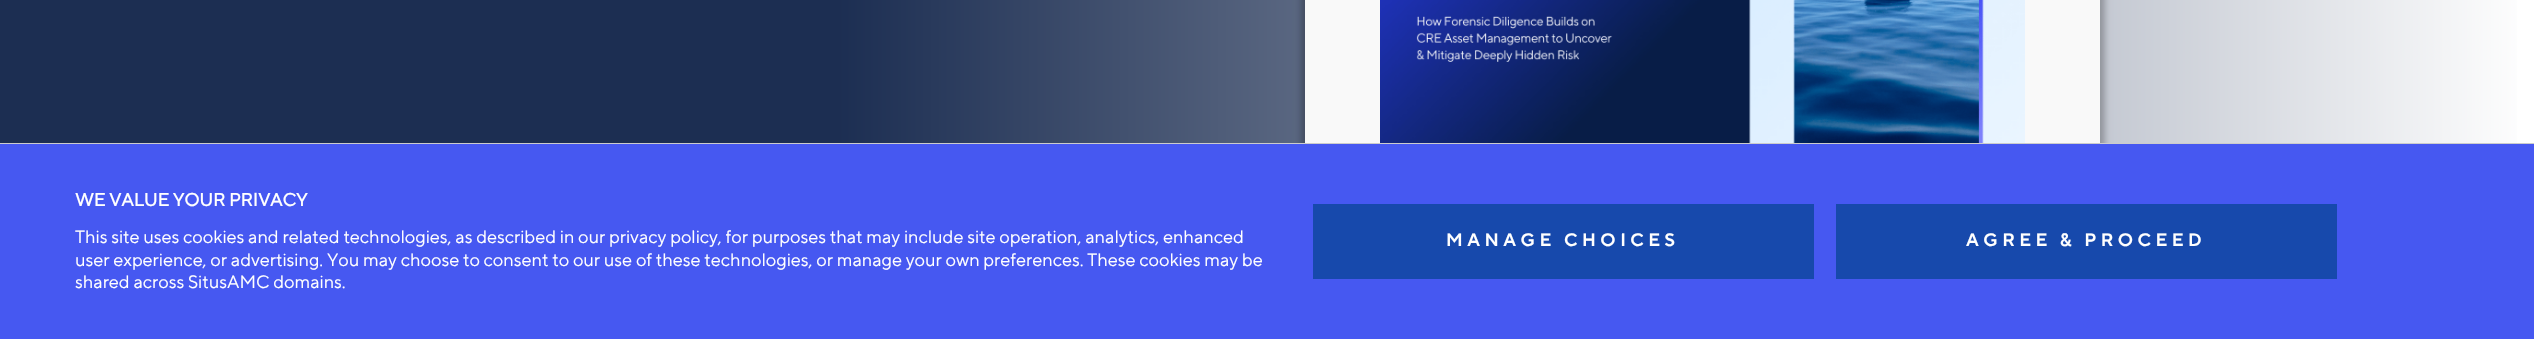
#include "include/core/SkBlurTypes.h"
#include "include/core/SkCanvas.h"
#include "include/core/SkData.h"
#include "include/core/SkFont.h"
#include "include/core/SkFontMgr.h"
#include "include/core/SkImage.h"
#include "include/core/SkMaskFilter.h"
#include "include/core/SkPaint.h"
#include "include/core/SkPathBuilder.h"
#include "include/core/SkTextBlob.h"
#include "include/effects/SkDashPathEffect.h"
#include "include/effects/SkGradientShader.h"
#include "include/utils/SkParsePath.h"

extern sk_sp<SkFontMgr> fontMgr;

static SkFont font(const char* family, int weight, float size, bool italic = false) {
    SkFontStyle style(weight, SkFontStyle::kNormal_Width,
        italic ? SkFontStyle::kItalic_Slant : SkFontStyle::kUpright_Slant);
    SkFont result(fontMgr->matchFamilyStyle(family, style), size);
    result.setSubpixel(true);
    return result;
}

static void drawLabel(SkCanvas* canvas, const char* s, float x, float y, const SkFont& font, SkColor color) {
    SkPaint ink(SkColor4f::FromColor(color));
    ink.setAntiAlias(true);
    canvas->drawString(s, x, y, font, ink);
}

static void drawTracked(SkCanvas* canvas, const char* s, float x, float y, const SkFont& font, const SkPaint& ink, float letter, float word) {
    std::vector<SkGlyphID> glyphs(font.countText(s, strlen(s), SkTextEncoding::kUTF8));
    std::vector<float> xs(glyphs.size());
    font.textToGlyphs(s, strlen(s), SkTextEncoding::kUTF8, glyphs);
    font.getXPos(glyphs, xs, x);
    float extra = 0;
    for (size_t i = 0; i < glyphs.size(); i++) {
        xs[i] += extra;
        extra += letter + word * (glyphs[i] == font.unicharToGlyph(' '));
    }
    canvas->drawTextBlob(SkTextBlob::MakeFromPosHGlyphs(glyphs, xs, y, font), 0, 0, ink);
}

static void fillRect(SkCanvas* canvas, float x, float y, float w, float h, SkColor color) {
    SkPaint ink(SkColor4f::FromColor(color));
    ink.setAntiAlias(true);
    canvas->drawRect(SkRect::MakeXYWH(x, y, w, h), ink);
}

static void drawPhoto(SkCanvas* canvas, const char* path, float x, float y, float w, float h) {
    auto image = SkImages::DeferredFromEncodedData(SkData::MakeFromFileName(path));
    canvas->drawImageRect(image, SkRect::MakeXYWH(x, y, w, h), SkSamplingOptions());
}

void draw(SkCanvas* canvas) {
    SkPaint paint;
    paint.setAntiAlias(true);
    canvas->clear(0xFFFFFFFF);
    {
        const SkColor colors[] = {0xFFFFFFFF, 0xFF8E97A9, 0xFF1C2E52, 0xFF1C2E52};
        const float stops[] = {0, 0.33f, 0.67f, 1};
        const SkPoint ends[] = {{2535, -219}, {0, -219}};
        paint.setShader(SkGradientShader::MakeLinear(ends, colors, stops, 4, SkTileMode::kClamp));
        paint.setAlpha(255);
    }
    canvas->drawRect(SkRect::MakeXYWH(0, 0, 2517, 143), paint);
    paint.setShader(nullptr);
    paint.setColor(0x40000000);
    paint.setMaskFilter(SkMaskFilter::MakeBlur(kNormal_SkBlurStyle, 3));
    canvas->drawRect(SkRect::MakeXYWH(1301, -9, 804, 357), paint);
    paint.setMaskFilter(nullptr);
    fillRect(canvas, 1305, 0, 795, 143, 0xFFF9F9F9);
    drawPhoto(canvas, "assets/img1.png", 1380, 0, 645, 143);
    fillRect(canvas, 0, 143, 2534, 1, 0xFFCCCCCC);
    fillRect(canvas, 0, 144, 2534, 195, 0xFF4658F1);
    SkFont font1 = font("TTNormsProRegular", 700, 18);
    drawLabel(canvas, "WE VALUE YOUR PRIVACY", 75, 206, font1, 0xFFFFFFFF);
    SkFont font2 = font("TTNormsProRegular", 400, 18);
    drawLabel(canvas, "This site uses cookies and related technologies, as described in our privacy policy, for purposes that may include site operation, analytics, enhanced", 75, 243, font2, 0xFFFFFFFF);
    drawLabel(canvas, "user experience, or advertising. You may choose to consent to our use of these technologies, or manage your own preferences. These cookies may be", 75, 266, font2, 0xFFFFFFFF);
    drawLabel(canvas, "shared across SitusAMC domains.", 75, 288, font2, 0xFFFFFFFF);
    fillRect(canvas, 1313, 204, 501, 75, 0xFF1749AC);
    SkFont font3 = font("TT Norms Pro", 600, 18);
    paint.setColor(0xFFFFFFFF);
    drawTracked(canvas, "MANAGE CHOICES", 1446, 246, font3, paint, 4.5f, 0);
    fillRect(canvas, 1836, 204, 501, 75, 0xFF1749AC);
    drawTracked(canvas, "AGREE & PROCEED", 1966, 246, font3, paint, 4.5f, 0);
}
